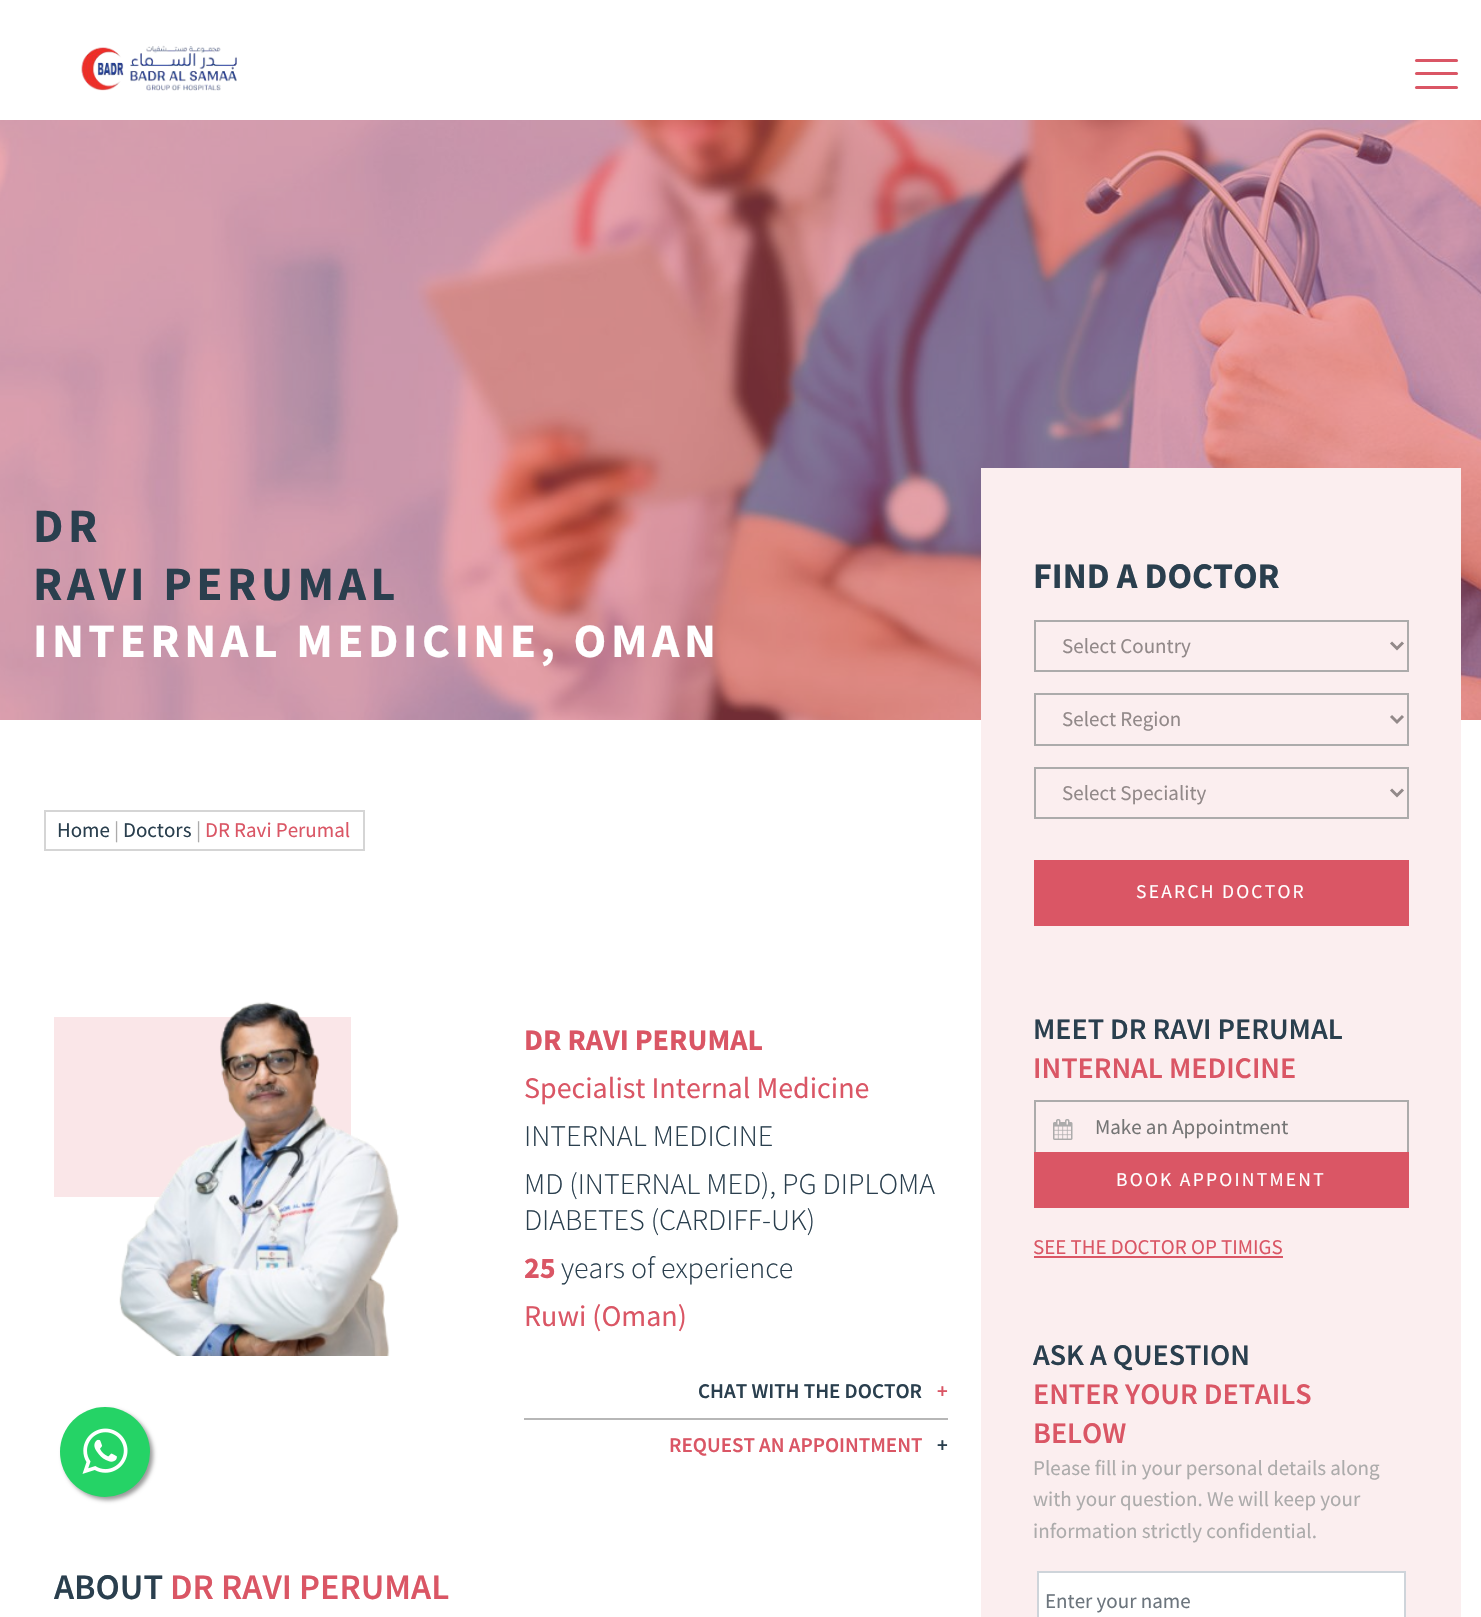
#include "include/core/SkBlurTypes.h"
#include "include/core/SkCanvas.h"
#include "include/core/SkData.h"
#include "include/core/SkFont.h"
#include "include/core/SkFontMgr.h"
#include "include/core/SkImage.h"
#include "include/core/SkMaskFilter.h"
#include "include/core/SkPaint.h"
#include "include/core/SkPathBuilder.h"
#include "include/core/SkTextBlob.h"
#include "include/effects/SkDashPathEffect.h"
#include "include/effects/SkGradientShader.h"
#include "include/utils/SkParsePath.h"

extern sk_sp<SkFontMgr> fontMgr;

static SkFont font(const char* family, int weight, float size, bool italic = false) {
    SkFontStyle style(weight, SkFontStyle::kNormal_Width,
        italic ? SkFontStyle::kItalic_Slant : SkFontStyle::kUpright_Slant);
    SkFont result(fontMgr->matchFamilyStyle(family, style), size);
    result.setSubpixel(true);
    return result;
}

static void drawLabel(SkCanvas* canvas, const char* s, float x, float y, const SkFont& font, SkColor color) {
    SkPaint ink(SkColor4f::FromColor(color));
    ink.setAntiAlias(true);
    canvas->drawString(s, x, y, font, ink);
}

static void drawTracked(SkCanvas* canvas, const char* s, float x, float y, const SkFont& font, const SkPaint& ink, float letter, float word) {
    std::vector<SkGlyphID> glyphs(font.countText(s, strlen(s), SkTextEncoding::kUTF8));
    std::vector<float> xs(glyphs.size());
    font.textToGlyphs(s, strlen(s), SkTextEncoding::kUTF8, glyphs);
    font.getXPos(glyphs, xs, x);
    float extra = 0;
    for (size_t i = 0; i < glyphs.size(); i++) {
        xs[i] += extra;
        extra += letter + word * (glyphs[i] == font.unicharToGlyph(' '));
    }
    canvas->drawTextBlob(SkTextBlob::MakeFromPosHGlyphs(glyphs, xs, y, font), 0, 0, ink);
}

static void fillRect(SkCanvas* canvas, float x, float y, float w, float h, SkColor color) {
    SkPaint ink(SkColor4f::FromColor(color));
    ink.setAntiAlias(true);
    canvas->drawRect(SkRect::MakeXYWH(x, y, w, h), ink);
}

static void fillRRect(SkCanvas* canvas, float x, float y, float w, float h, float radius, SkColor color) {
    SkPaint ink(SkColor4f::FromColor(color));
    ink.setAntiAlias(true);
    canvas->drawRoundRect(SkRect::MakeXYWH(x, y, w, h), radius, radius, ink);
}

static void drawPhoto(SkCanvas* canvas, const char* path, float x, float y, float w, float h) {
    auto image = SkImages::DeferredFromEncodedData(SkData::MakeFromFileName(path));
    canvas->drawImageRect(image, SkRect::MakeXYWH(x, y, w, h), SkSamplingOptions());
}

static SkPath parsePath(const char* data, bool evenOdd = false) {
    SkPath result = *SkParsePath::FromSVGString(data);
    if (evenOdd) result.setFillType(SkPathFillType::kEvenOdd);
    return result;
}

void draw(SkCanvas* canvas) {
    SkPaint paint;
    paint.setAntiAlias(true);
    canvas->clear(0xFFFFFFFF);
    drawPhoto(canvas, "assets/img1.png", 81, 45, 156, 46);
    fillRRect(canvas, 1415, 59, 43, 3, 1.5f, 0xFFDA5665);
    fillRRect(canvas, 1415, 72, 43, 3, 1.5f, 0xFFDA5665);
    fillRRect(canvas, 1415, 86, 43, 3, 1.5f, 0xFFDA5665);
    drawPhoto(canvas, "assets/img2.png", 0, 120, 1481, 600);
    SkFont font1 = font("Source Sans Pro", 700, 48);
    paint.setColor(0xFF2A3F4E);
    drawTracked(canvas, "DR", 33, 542, font1, paint, 4.5f, 0);
    drawTracked(canvas, "RAVI PERUMAL", 33, 600, font1, paint, 4.5f, 0);
    paint.setColor(0xFFFFFFFF);
    drawTracked(canvas, "INTERNAL MEDICINE, OMAN", 33, 657, font1, paint, 4.5f, 0);
    paint.setStroke(true);
    paint.setStrokeWidth(2);
    paint.setColor(0xFFD5D5D5);
    canvas->drawRect(SkRect::MakeXYWH(45, 811, 319, 39), paint);
    SkFont font2 = font("Source Sans Pro", 400, 21);
    drawLabel(canvas, "Home", 57, 837, font2, 0xFF2A3F4E);
    drawLabel(canvas, "|", 114, 837, font2, 0xFFACABAB);
    drawLabel(canvas, "Doctors", 123, 837, font2, 0xFF2A3F4E);
    drawLabel(canvas, "|", 196, 837, font2, 0xFFACABAB);
    drawLabel(canvas, "DR Ravi Perumal", 205, 837, font2, 0xFFDA5665);
    fillRect(canvas, 54, 1017, 297, 180, 0xFFFAE6E8);
    drawPhoto(canvas, "assets/img3.png", 119, 1001, 280, 355);
    SkFont font3 = font("Source Sans Pro", 700, 30);
    drawLabel(canvas, "DR RAVI PERUMAL", 524, 1050, font3, 0xFFDA5665);
    SkFont font4 = font("Source Sans Pro", 400, 30);
    drawLabel(canvas, "Specialist Internal Medicine", 524, 1098, font4, 0xFFDA5665);
    SkFont font5 = font("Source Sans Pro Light", 300, 30);
    drawLabel(canvas, "INTERNAL MEDICINE", 524, 1146, font5, 0xFF2A3F4E);
    drawLabel(canvas, "MD (INTERNAL MED), PG DIPLOMA", 524, 1194, font5, 0xFF2A3F4E);
    drawLabel(canvas, "DIABETES (CARDIFF-UK)", 524, 1230, font5, 0xFF2A3F4E);
    drawLabel(canvas, "25", 524, 1278, font3, 0xFFDA5665);
    drawLabel(canvas, "years of experience", 561, 1278, font5, 0xFF2A3F4E);
    drawLabel(canvas, "Ruwi (Oman)", 524, 1326, font4, 0xFFDA5665);
    fillRect(canvas, 524, 1418, 424, 2, 0xFFB7B7B7);
    SkFont font6 = font("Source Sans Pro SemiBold", 600, 21);
    drawLabel(canvas, "CHAT WITH THE DOCTOR", 698, 1398, font6, 0xFF2A3F4E);
    drawLabel(canvas, "+", 937, 1398, font6, 0xFFDA5665);
    drawLabel(canvas, "REQUEST AN APPOINTMENT", 669, 1452, font6, 0xFFDA5665);
    drawLabel(canvas, "+", 937, 1452, font6, 0xFF2A3F4E);
    SkFont font7 = font("Source Sans Pro SemiBold", 600, 36);
    drawLabel(canvas, "ABOUT", 54, 1599, font7, 0xFF2A3F4E);
    drawLabel(canvas, "DR RAVI PERUMAL", 170, 1599, font7, 0xFFDA5665);
    fillRect(canvas, 981, 468, 480, 1149, 0xFFFBEEEF);
    SkFont font8 = font("Source Sans Pro", 700, 36);
    drawLabel(canvas, "FIND A DOCTOR", 1033, 588, font8, 0xFF2A3F4E);
    paint.setStrokeWidth(3);
    paint.setColor(0xFF928989);
    canvas->drawPath(parsePath("M1391 642.5L1397 648.5L1403 642.5"), paint);
    paint.setStrokeWidth(2);
    paint.setColor(0xFFACABAB);
    canvas->drawRect(SkRect::MakeXYWH(1035, 621, 373, 50), paint);
    drawLabel(canvas, "Select Country", 1062, 653, font2, 0xFF928989);
    paint.setStrokeWidth(3);
    paint.setColor(0xFF928989);
    canvas->drawPath(parsePath("M1391 716L1397 722L1403 716"), paint);
    paint.setStrokeWidth(2);
    paint.setColor(0xFFACABAB);
    canvas->drawRect(SkRect::MakeXYWH(1035, 694, 373, 51), paint);
    drawLabel(canvas, "Select Region", 1062, 726, font2, 0xFF928989);
    paint.setStrokeWidth(3);
    paint.setColor(0xFF928989);
    canvas->drawPath(parsePath("M1391 789.5L1397 795.5L1403 789.5"), paint);
    paint.setStrokeWidth(2);
    paint.setColor(0xFFACABAB);
    canvas->drawRect(SkRect::MakeXYWH(1035, 768, 373, 50), paint);
    drawLabel(canvas, "Select Speciality", 1062, 800, font2, 0xFF928989);
    fillRect(canvas, 1034, 860, 375, 66, 0xFFDA5665);
    SkFont font9 = font("Source Sans Pro", 400, 19.5f);
    paint.setStroke(false);
    paint.setColor(0xFFFFFFFF);
    drawTracked(canvas, "SEARCH DOCTOR", 1136, 898, font9, paint, 2.25f, 0);
    SkFont font10 = font("Source Sans Pro SemiBold", 600, 30);
    drawLabel(canvas, "MEET DR RAVI PERUMAL", 1033, 1039, font10, 0xFF2A3F4E);
    drawLabel(canvas, "INTERNAL MEDICINE", 1033, 1078, font10, 0xFFDA5665);
    drawPhoto(canvas, "assets/img4.png", 1053, 1119, 20, 21);
    fillRect(canvas, 1034, 1100, 375, 2, 0xFFACABAB);
    fillRect(canvas, 1407, 1100, 2, 52, 0xFFACABAB);
    fillRect(canvas, 1034, 1100, 2, 52, 0xFFACABAB);
    drawLabel(canvas, "Make an Appointment", 1095, 1134, font2, 0xFF757575);
    fillRect(canvas, 1034, 1152, 375, 56, 0xFFDA5665);
    drawTracked(canvas, "BOOK APPOINTMENT", 1116, 1186, font9, paint, 2.25f, 0);
    drawLabel(canvas, "SEE THE DOCTOR OP TIMIGS", 1033, 1254, font2, 0xFFDA5665);
    fillRect(canvas, 1034, 1256, 249, 2, 0xFFDA5665);
    drawLabel(canvas, "ASK A QUESTION", 1033, 1365, font10, 0xFF2A3F4E);
    drawLabel(canvas, "ENTER YOUR DETAILS", 1033, 1404, font10, 0xFFDA5665);
    drawLabel(canvas, "BELOW", 1033, 1443, font10, 0xFFDA5665);
    drawLabel(canvas, "Please fill in your personal details along", 1033, 1475, font2, 0xFFACABAB);
    drawLabel(canvas, "with your question. We will keep your", 1033, 1506, font2, 0xFFACABAB);
    drawLabel(canvas, "information strictly confidential.", 1033, 1538, font2, 0xFFACABAB);
    canvas->drawRect(SkRect::MakeXYWH(1038, 1572, 367, 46), paint);
    paint.setStroke(true);
    paint.setColor(0xFFCED4DA);
    canvas->drawRect(SkRect::MakeXYWH(1038, 1572, 367, 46), paint);
    drawLabel(canvas, "Enter your name", 1045, 1608, font2, 0xFF6C757D);
    paint.setStroke(false);
    paint.setColor(0xFF999999);
    paint.setMaskFilter(SkMaskFilter::MakeBlur(kNormal_SkBlurStyle, 2));
    canvas->drawRoundRect(SkRect::MakeXYWH(63, 1410, 90, 90), 45, 45, paint);
    paint.setMaskFilter(nullptr);
    paint.setColor(0xFF25D366);
    canvas->drawCircle(105, 1452, 45, paint);
    drawPhoto(canvas, "assets/img5.png", 82, 1428, 46, 46);
}
